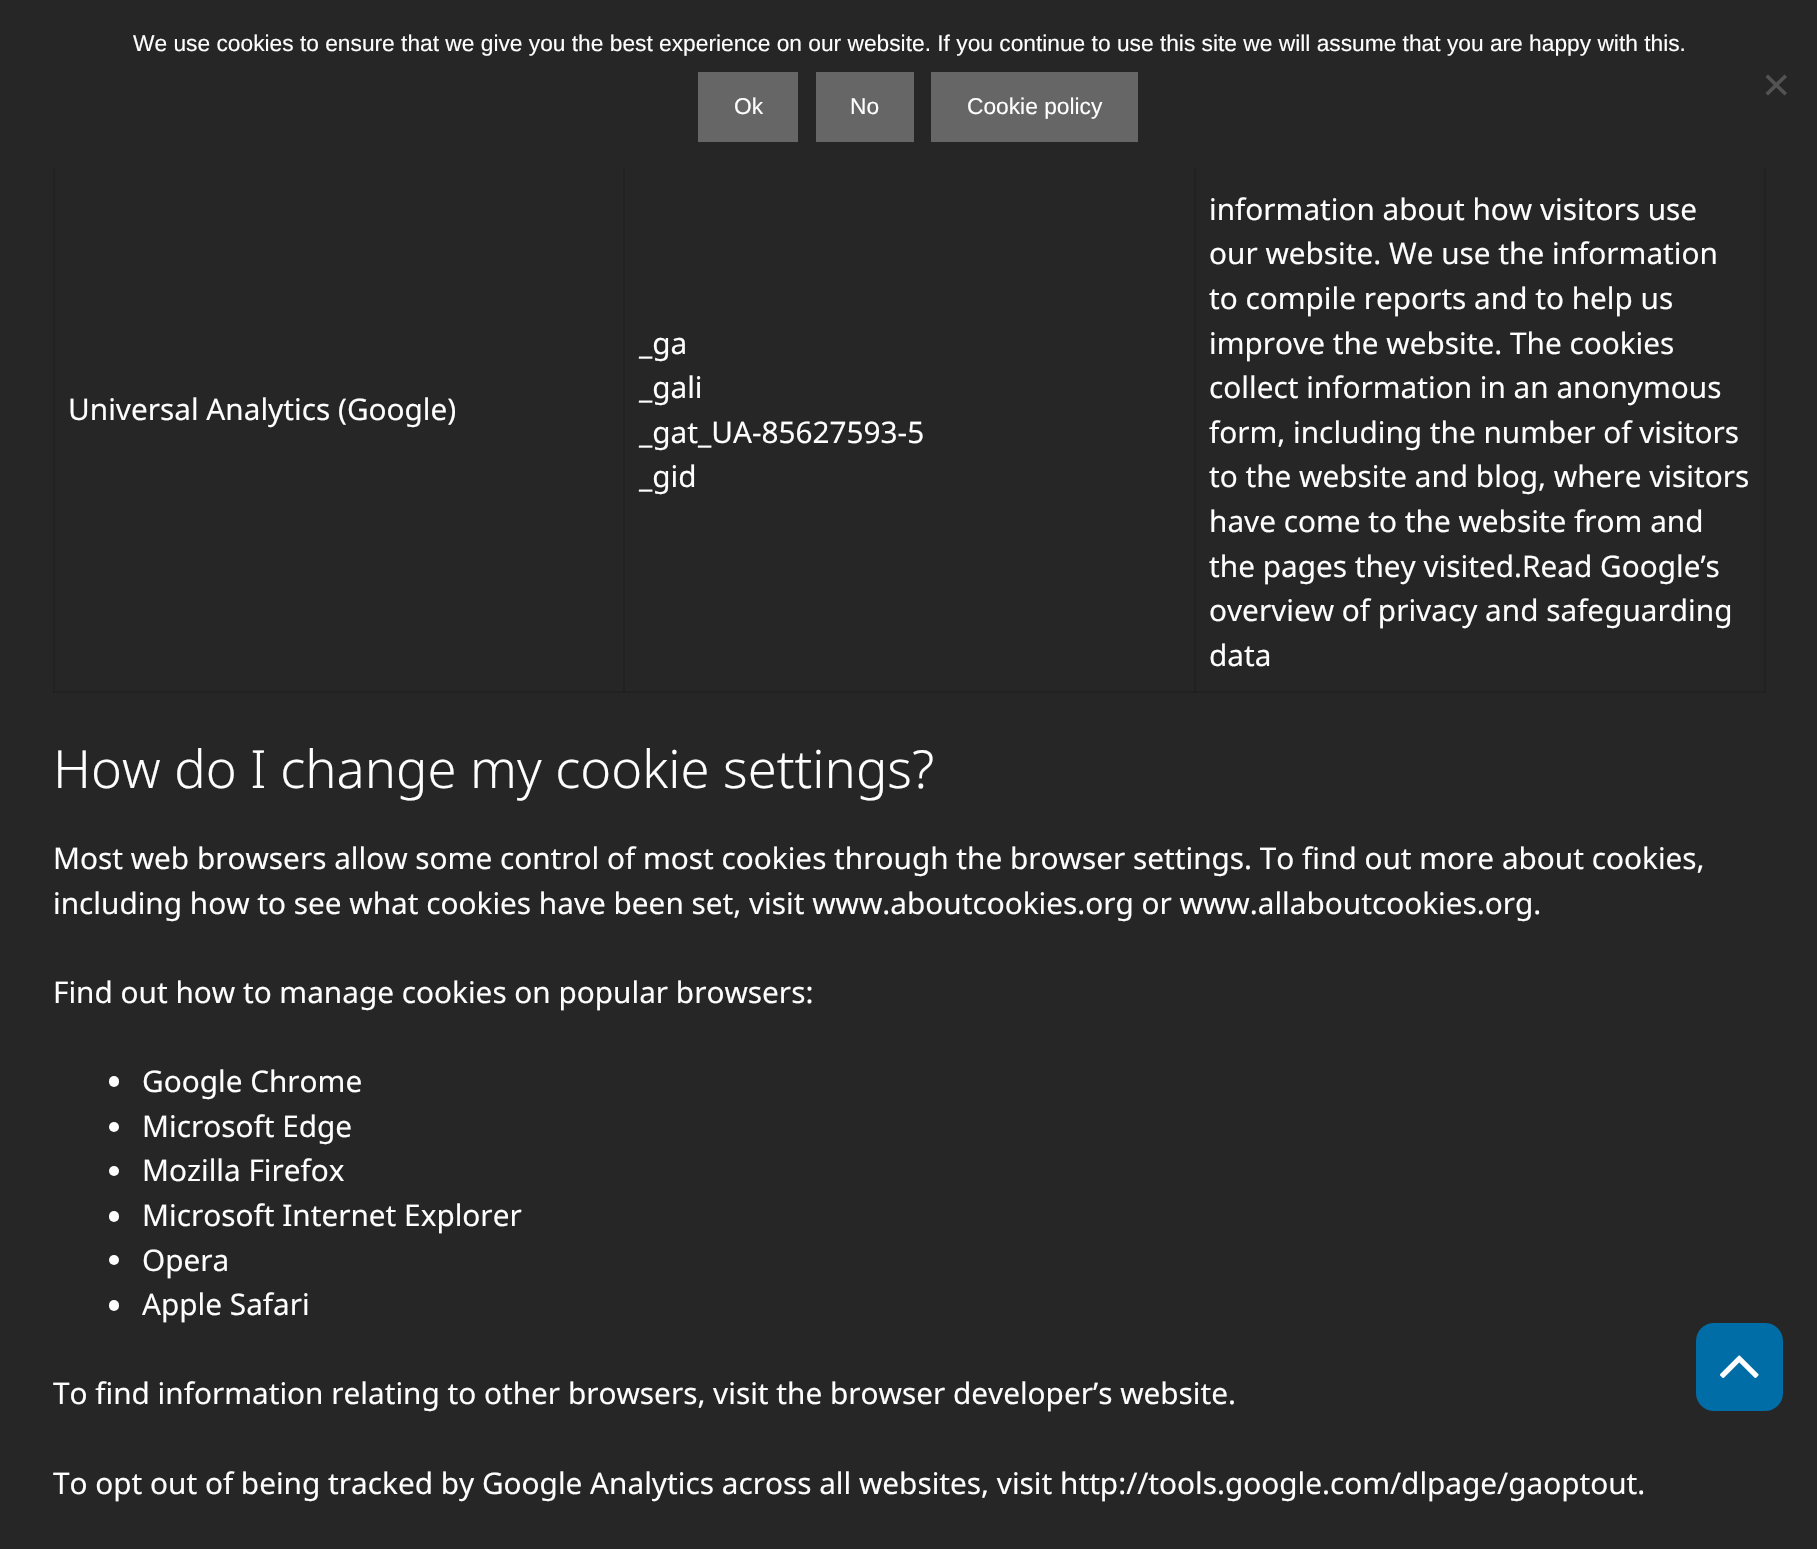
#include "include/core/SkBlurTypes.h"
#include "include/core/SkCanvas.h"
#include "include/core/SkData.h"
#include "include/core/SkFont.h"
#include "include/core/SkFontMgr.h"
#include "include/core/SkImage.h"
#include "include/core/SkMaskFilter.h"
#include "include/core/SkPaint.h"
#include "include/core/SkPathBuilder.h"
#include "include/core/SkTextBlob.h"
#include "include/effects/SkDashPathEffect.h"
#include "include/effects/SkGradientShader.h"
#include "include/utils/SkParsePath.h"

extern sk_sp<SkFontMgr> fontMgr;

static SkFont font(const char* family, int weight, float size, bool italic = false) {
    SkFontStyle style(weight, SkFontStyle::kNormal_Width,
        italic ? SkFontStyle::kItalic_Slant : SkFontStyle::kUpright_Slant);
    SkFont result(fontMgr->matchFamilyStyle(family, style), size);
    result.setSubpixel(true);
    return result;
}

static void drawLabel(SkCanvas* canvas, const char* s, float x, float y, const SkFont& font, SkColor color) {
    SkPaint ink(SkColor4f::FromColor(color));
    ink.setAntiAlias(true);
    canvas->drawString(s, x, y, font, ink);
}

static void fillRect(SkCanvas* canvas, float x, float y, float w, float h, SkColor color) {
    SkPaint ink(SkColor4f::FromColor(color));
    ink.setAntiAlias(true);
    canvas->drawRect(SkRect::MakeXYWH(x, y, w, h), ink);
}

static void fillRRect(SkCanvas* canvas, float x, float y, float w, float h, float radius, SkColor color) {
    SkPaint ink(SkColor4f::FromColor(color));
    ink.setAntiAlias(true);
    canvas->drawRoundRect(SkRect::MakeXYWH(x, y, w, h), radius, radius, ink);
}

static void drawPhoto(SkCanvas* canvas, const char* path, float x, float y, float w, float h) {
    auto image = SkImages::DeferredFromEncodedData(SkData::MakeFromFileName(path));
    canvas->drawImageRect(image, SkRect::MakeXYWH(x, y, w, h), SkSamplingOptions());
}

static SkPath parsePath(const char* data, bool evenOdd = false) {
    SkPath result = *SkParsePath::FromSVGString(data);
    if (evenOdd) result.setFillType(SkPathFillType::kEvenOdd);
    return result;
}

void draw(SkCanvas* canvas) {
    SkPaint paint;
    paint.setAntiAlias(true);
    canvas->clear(0xFF262626);
    fillRect(canvas, 53, 691, 572, 2, 0xFF222222);
    fillRect(canvas, 623, 168, 2, 525, 0xFF222222);
    fillRect(canvas, 623, 691, 572, 2, 0xFF222222);
    fillRect(canvas, 623, 691, 2, 2, 0xFF1C1C1C);
    fillRect(canvas, 1194, 168, 2, 525, 0xFF222222);
    fillRect(canvas, 1194, 691, 572, 2, 0xFF222222);
    fillRect(canvas, 1194, 691, 2, 2, 0xFF1F1F1F);
    fillRect(canvas, 1194, 691, 1, 2, 0xFF1C1C1C);
    SkFont font1 = font("Liberation Sans", 400, 22.75f);
    drawLabel(canvas, "We use cookies to ensure that we give you the best experience on our website. If you continue to use this site we will assume that you are happy with this.", 133, 51, font1, 0xFFFEFEFE);
    paint.setColor(0xFF535353);
    canvas->drawPath(parsePath("M1784.5 74.5L1787 77L1768 95.5L1765.5 93Z"), paint);
    canvas->drawPath(parsePath("M1765.5 77L1768 74.5L1787 93L1784.5 95.5Z"), paint);
    fillRect(canvas, 698, 72, 100, 70, 0xFF666666);
    drawLabel(canvas, "Ok", 734, 114, font1, 0xFFFEFEFE);
    fillRect(canvas, 816, 72, 98, 70, 0xFF666666);
    drawLabel(canvas, "No", 850, 114, font1, 0xFFFEFEFE);
    fillRect(canvas, 931, 72, 207, 70, 0xFF666666);
    drawLabel(canvas, "Cookie policy", 967, 114, font1, 0xFFFEFEFE);
    fillRect(canvas, 53, 168, 2, 525, 0xFF222222);
    fillRect(canvas, 53, 691, 2, 2, 0xFF1F1F1F);
    SkFont font2 = font("Noto Sans", 400, 29.75f);
    drawLabel(canvas, "Universal Analytics (Google)", 68, 420, font2, 0xFFFEFEFE);
    drawLabel(canvas, "_ga", 639, 354, font2, 0xFFFEFEFE);
    drawLabel(canvas, "_gali", 639, 398, font2, 0xFFFEFEFE);
    drawLabel(canvas, "_gat_UA-85627593-5", 639, 443, font2, 0xFFFEFEFE);
    drawLabel(canvas, "_gid", 639, 487, font2, 0xFFFEFEFE);
    fillRect(canvas, 1764, 168, 2, 525, 0xFF222222);
    fillRect(canvas, 1764, 691, 2, 2, 0xFF1F1F1F);
    drawLabel(canvas, "information about how visitors use", 1209, 220, font2, 0xFFFEFEFE);
    drawLabel(canvas, "our website. We use the information", 1209, 264, font2, 0xFFFEFEFE);
    drawLabel(canvas, "to compile reports and to help us", 1209, 309, font2, 0xFFFEFEFE);
    drawLabel(canvas, "improve the website. The cookies", 1209, 354, font2, 0xFFFEFEFE);
    drawLabel(canvas, "collect information in an anonymous", 1209, 398, font2, 0xFFFEFEFE);
    drawLabel(canvas, "form, including the number of visitors", 1209, 443, font2, 0xFFFEFEFE);
    drawLabel(canvas, "to the website and blog, where visitors", 1209, 487, font2, 0xFFFEFEFE);
    drawLabel(canvas, "have come to the website from and", 1209, 532, font2, 0xFFFEFEFE);
    drawLabel(canvas, "the pages they visited.Read Google’s", 1209, 577, font2, 0xFFFEFEFE);
    drawLabel(canvas, "overview of privacy and safeguarding", 1209, 621, font2, 0xFFFEFEFE);
    drawLabel(canvas, "data", 1209, 666, font2, 0xFFFEFEFE);
    SkFont font3 = font("Noto Sans", 300, 52.5f);
    drawLabel(canvas, "How do I change my cookie settings?", 53, 788, font3, 0xFFFEFEFE);
    drawLabel(canvas, "Most web browsers allow some control of most cookies through the browser settings. To find out more about cookies,", 53, 869, font2, 0xFFFEFEFE);
    drawLabel(canvas, "including how to see what cookies have been set, visit www.aboutcookies.org or www.allaboutcookies.org.", 53, 914, font2, 0xFFFEFEFE);
    drawLabel(canvas, "Find out how to manage cookies on popular browsers:", 53, 1003, font2, 0xFFFEFEFE);
    fillRRect(canvas, 109, 1076, 10, 11, 5, 0xFFFEFEFE);
    drawLabel(canvas, "Google Chrome", 142, 1092, font2, 0xFFFEFEFE);
    paint.setColor(0xFFFEFEFE);
    canvas->drawCircle(114, 1127, 5, paint);
    drawLabel(canvas, "Microsoft Edge", 142, 1137, font2, 0xFFFEFEFE);
    canvas->drawCircle(114, 1171, 5, paint);
    drawLabel(canvas, "Mozilla Firefox", 142, 1181, font2, 0xFFFEFEFE);
    fillRRect(canvas, 109, 1211, 10, 11, 5, 0xFFFEFEFE);
    drawLabel(canvas, "Microsoft Internet Explorer", 142, 1226, font2, 0xFFFEFEFE);
    canvas->drawCircle(114, 1260, 5, paint);
    drawLabel(canvas, "Opera", 142, 1271, font2, 0xFFFEFEFE);
    fillRRect(canvas, 109, 1300, 10, 11, 5, 0xFFFEFEFE);
    drawLabel(canvas, "Apple Safari", 142, 1315, font2, 0xFFFEFEFE);
    drawLabel(canvas, "To find information relating to other browsers, visit the browser developer’s website.", 53, 1404, font2, 0xFFFEFEFE);
    drawLabel(canvas, "To opt out of being tracked by Google Analytics across all websites, visit http://tools.google.com/dlpage/gaoptout.", 53, 1494, font2, 0xFFFEFEFE);
    fillRRect(canvas, 1696, 1323, 87, 88, 18, 0xFF006DA6);
    drawPhoto(canvas, "assets/img1.png", 1720, 1355, 39, 23);
}
